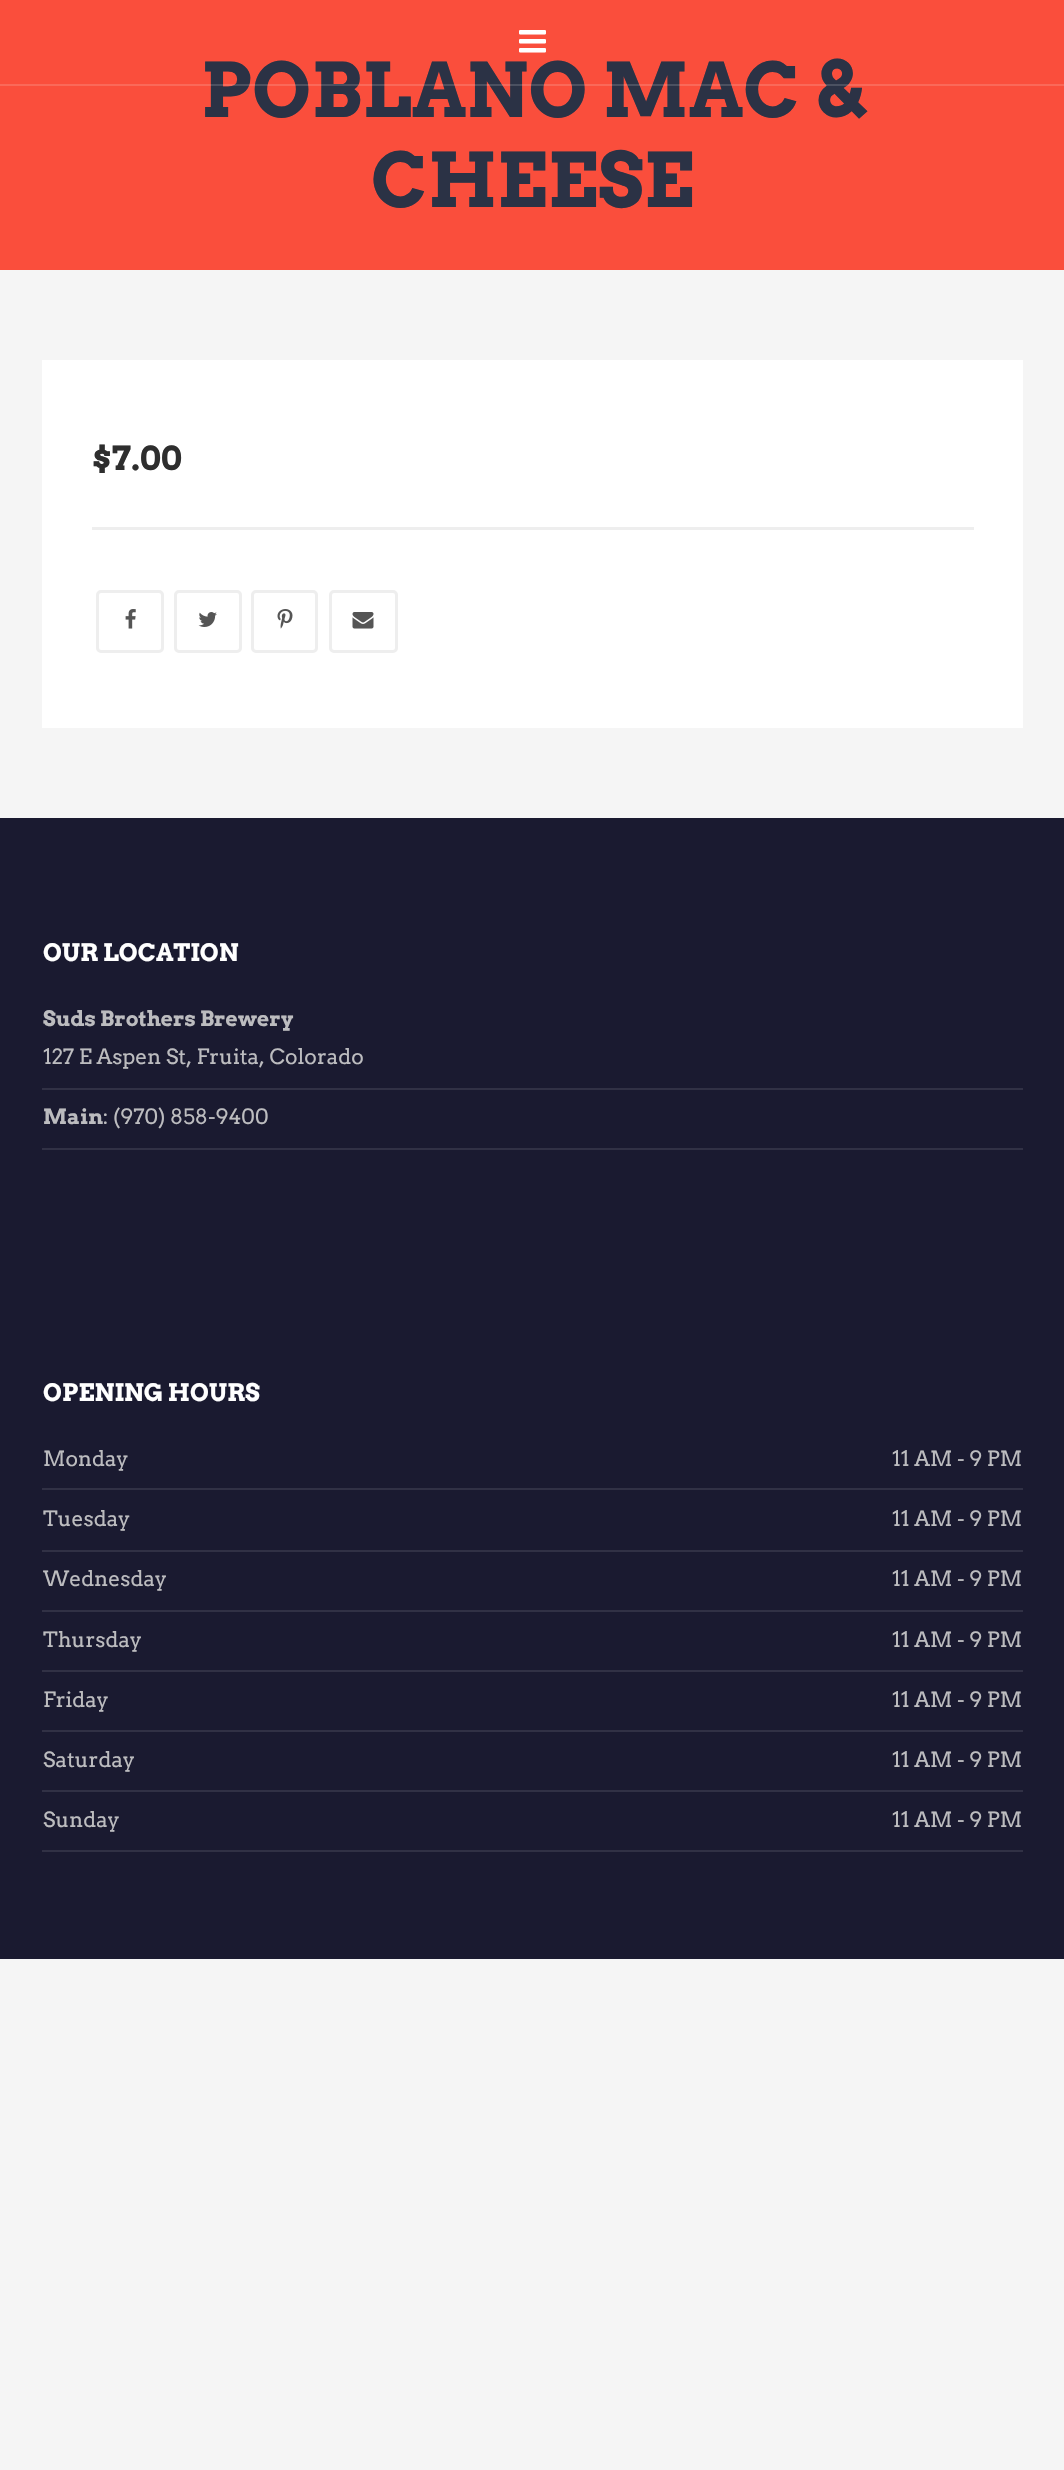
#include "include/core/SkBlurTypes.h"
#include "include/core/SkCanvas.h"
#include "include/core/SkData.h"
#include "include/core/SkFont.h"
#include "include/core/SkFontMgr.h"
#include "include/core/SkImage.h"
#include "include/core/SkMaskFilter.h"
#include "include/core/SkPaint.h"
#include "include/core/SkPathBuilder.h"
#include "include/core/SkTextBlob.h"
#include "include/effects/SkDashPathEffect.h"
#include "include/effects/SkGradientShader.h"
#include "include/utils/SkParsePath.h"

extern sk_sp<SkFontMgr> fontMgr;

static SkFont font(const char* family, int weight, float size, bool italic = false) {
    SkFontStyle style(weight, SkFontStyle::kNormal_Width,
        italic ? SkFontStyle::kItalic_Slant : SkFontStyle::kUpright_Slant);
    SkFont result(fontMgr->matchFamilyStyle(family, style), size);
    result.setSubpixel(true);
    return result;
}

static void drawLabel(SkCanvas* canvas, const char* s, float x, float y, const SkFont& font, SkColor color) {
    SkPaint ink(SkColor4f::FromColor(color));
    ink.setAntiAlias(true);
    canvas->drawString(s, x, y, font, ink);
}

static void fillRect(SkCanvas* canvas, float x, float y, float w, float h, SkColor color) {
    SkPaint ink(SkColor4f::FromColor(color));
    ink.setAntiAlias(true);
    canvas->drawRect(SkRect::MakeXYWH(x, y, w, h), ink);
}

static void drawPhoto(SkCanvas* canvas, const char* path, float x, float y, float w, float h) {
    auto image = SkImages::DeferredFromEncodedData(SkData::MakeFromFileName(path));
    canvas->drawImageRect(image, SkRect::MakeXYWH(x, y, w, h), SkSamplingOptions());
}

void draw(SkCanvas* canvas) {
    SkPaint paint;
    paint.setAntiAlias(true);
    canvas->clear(0xFFF5F5F5);
    fillRect(canvas, 0, 0, 1064, 270, 0xFFFA4E3C);
    drawPhoto(canvas, "assets/img1.png", 519, 30, 27, 23);
    SkFont font1 = font("Arvo", 700, 75);
    drawLabel(canvas, "POBLANO MAC &", 201, 117, font1, 0xFF2B3245);
    fillRect(canvas, 0, 84, 1064, 2, 0x26FFFFFF);
    drawLabel(canvas, "CHEESE", 371, 207, font1, 0xFF2B3245);
    fillRect(canvas, 42, 360, 981, 368, 0xFFFFFFFF);
    SkFont font2 = font("Arvo", 700, 33);
    drawLabel(canvas, "$7.00", 92, 470, font2, 0xFF2E2E2E);
    fillRect(canvas, 92, 527, 882, 3, 0xFFEEEEEE);
    paint.setStroke(true);
    paint.setStrokeWidth(3);
    paint.setColor(0xFFEEEEEE);
    canvas->drawRoundRect(SkRect::MakeXYWH(97.5f, 591.5f, 65, 60), 3.5f, 3.5f, paint);
    drawPhoto(canvas, "assets/img2.png", 125, 609, 11, 20);
    canvas->drawRoundRect(SkRect::MakeXYWH(175.5f, 591.5f, 65, 60), 3.5f, 3.5f, paint);
    drawPhoto(canvas, "assets/img3.png", 198, 612, 19, 15);
    canvas->drawRoundRect(SkRect::MakeXYWH(252.5f, 591.5f, 64, 60), 3.5f, 3.5f, paint);
    drawPhoto(canvas, "assets/img4.png", 277, 609, 16, 20);
    canvas->drawRoundRect(SkRect::MakeXYWH(330.5f, 591.5f, 66, 60), 3.5f, 3.5f, paint);
    drawPhoto(canvas, "assets/img5.png", 352, 612, 22, 17);
    fillRect(canvas, 0, 818, 1064, 1141, 0xFF1A1A30);
    SkFont font3 = font("Arvo", 700, 24);
    drawLabel(canvas, "OUR LOCATION", 43, 961, font3, 0xFFFFFFFF);
    fillRect(canvas, 42, 1088, 981, 2, 0xFF313145);
    SkFont font4 = font("Arvo", 700, 21);
    drawLabel(canvas, "Suds Brothers Brewery", 43, 1026, font4, 0xFFBCBCBF);
    SkFont font5 = font("Arvo", 400, 21);
    drawLabel(canvas, "127 E Aspen St, Fruita, Colorado", 43, 1064, font5, 0xFFBCBCBF);
    fillRect(canvas, 42, 1148, 981, 2, 0xFF313145);
    drawLabel(canvas, "Main", 43, 1124, font4, 0xFFBCBCBF);
    drawLabel(canvas, ": (970) 858-9400", 103, 1124, font5, 0xFFBCBCBF);
    drawLabel(canvas, "OPENING HOURS", 43, 1401, font3, 0xFFFFFFFF);
    fillRect(canvas, 42, 1488, 981, 2, 0xFF313145);
    drawLabel(canvas, "Monday", 43, 1466, font5, 0xFFBCBCBF);
    drawLabel(canvas, "11 AM - 9 PM", 892, 1466, font5, 0xFFBCBCBF);
    fillRect(canvas, 42, 1550, 981, 2, 0xFF313145);
    drawLabel(canvas, "Tuesday", 43, 1526, font5, 0xFFBCBCBF);
    drawLabel(canvas, "11 AM - 9 PM", 892, 1526, font5, 0xFFBCBCBF);
    fillRect(canvas, 42, 1610, 981, 2, 0xFF313145);
    drawLabel(canvas, "Wednesday", 43, 1586, font5, 0xFFBCBCBF);
    drawLabel(canvas, "11 AM - 9 PM", 892, 1586, font5, 0xFFBCBCBF);
    fillRect(canvas, 42, 1670, 981, 2, 0xFF313145);
    drawLabel(canvas, "Thursday", 43, 1647, font5, 0xFFBCBCBF);
    drawLabel(canvas, "11 AM - 9 PM", 892, 1647, font5, 0xFFBCBCBF);
    fillRect(canvas, 42, 1730, 981, 2, 0xFF313145);
    drawLabel(canvas, "Friday", 43, 1707, font5, 0xFFBCBCBF);
    drawLabel(canvas, "11 AM - 9 PM", 892, 1707, font5, 0xFFBCBCBF);
    fillRect(canvas, 42, 1790, 981, 2, 0xFF313145);
    drawLabel(canvas, "Saturday", 43, 1767, font5, 0xFFBCBCBF);
    drawLabel(canvas, "11 AM - 9 PM", 892, 1767, font5, 0xFFBCBCBF);
    fillRect(canvas, 42, 1850, 981, 2, 0xFF313145);
    drawLabel(canvas, "Sunday", 43, 1827, font5, 0xFFBCBCBF);
    drawLabel(canvas, "11 AM - 9 PM", 892, 1827, font5, 0xFFBCBCBF);
}
